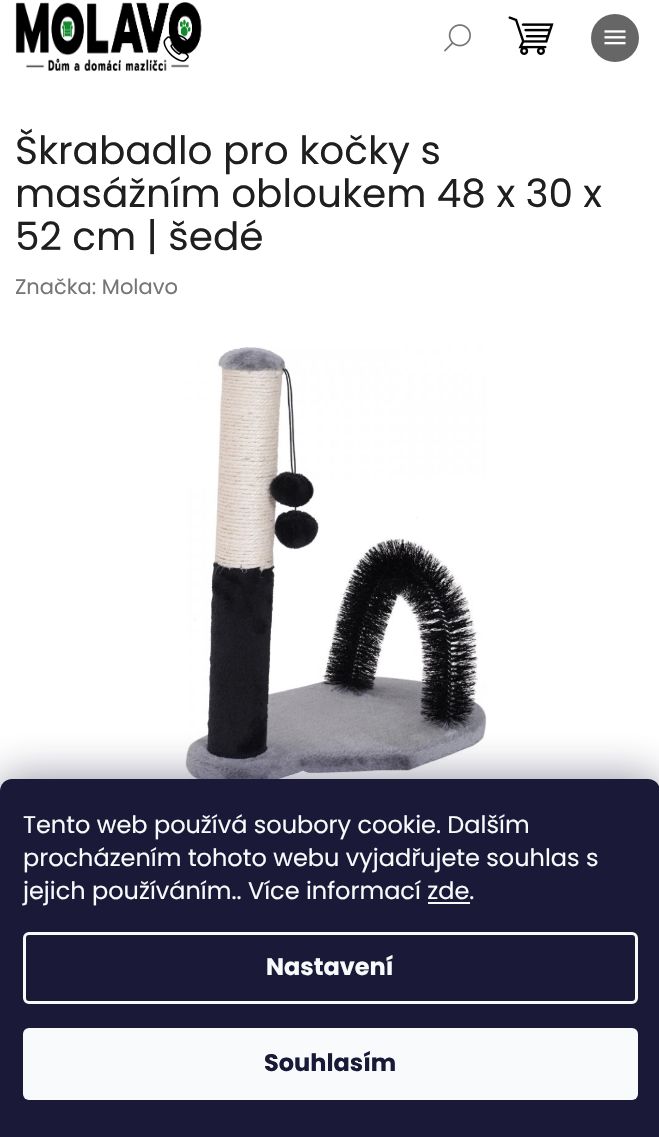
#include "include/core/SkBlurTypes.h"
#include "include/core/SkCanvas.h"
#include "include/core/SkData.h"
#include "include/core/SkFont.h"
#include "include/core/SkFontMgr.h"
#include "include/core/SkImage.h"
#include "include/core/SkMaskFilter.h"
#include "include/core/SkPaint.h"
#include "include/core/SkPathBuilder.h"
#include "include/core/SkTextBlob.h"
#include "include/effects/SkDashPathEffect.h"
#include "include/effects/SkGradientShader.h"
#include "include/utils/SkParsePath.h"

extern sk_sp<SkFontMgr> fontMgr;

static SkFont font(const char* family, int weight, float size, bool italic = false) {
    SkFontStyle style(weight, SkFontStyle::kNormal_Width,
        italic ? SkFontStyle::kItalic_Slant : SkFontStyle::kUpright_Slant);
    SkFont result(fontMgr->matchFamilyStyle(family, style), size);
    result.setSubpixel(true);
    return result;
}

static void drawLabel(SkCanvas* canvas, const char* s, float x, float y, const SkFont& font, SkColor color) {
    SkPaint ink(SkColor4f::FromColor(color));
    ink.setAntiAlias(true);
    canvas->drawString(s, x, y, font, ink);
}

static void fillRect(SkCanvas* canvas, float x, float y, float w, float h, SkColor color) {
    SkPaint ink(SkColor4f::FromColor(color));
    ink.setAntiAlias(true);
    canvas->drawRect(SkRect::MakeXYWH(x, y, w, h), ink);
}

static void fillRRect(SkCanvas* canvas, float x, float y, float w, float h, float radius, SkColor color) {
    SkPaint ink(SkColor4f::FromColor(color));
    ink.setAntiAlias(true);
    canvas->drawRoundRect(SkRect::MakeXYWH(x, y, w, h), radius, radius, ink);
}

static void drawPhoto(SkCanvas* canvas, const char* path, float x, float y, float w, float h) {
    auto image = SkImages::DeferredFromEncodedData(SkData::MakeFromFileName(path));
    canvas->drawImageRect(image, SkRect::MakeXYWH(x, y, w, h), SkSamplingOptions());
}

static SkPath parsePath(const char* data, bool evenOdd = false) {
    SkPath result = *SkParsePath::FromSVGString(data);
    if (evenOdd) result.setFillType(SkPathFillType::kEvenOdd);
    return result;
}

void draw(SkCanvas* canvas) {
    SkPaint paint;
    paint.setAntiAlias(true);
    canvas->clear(0xFFFFFFFF);
    drawPhoto(canvas, "assets/img3.png", 163, 34, 26, 28);
    drawPhoto(canvas, "assets/img1.png", 15, 2, 187, 70);
    drawPhoto(canvas, "assets/img2.png", 508, 16, 46, 39);
    drawPhoto(canvas, "assets/img4.png", 444, 24, 27, 28);
    paint.setColor(0xFF666666);
    canvas->drawCircle(615, 38, 24, paint);
    drawPhoto(canvas, "assets/img5.png", 604, 30, 22, 15);
    SkFont font1 = font("Poppins", 400, 39);
    drawLabel(canvas, "Škrabadlo pro kočky s", 15, 164, font1, 0xFF1F1F1F);
    drawLabel(canvas, "masážním obloukem 48 x 30 x", 15, 207, font1, 0xFF1F1F1F);
    drawLabel(canvas, "52 cm | šedé", 15, 250, font1, 0xFF1F1F1F);
    SkFont font2 = font("Poppins", 400, 21);
    drawLabel(canvas, "Značka: Molavo", 15, 294, font2, 0xFF767676);
    drawPhoto(canvas, "assets/img6.png", 185, 347, 302, 432);
    paint.setColor(0x801B1939);
    paint.setMaskFilter(SkMaskFilter::MakeBlur(kNormal_SkBlurStyle, 22.5f));
    canvas->drawRoundRect(SkRect::MakeXYWH(0, 779, 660, 358), 12, 12, paint);
    paint.setMaskFilter(nullptr);
    paint.setColor(0xFF1A1937);
    canvas->drawPath(parsePath("M12 779H648C654.5 779 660 784.5 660 791V1137H0V791C0 784.5 5.5 779 12 779Z"), paint);
    SkFont font3 = font("Poppins", 400, 24);
    drawLabel(canvas, "Tento web používá soubory cookie. Dalším", 23, 833, font3, 0xFFF8FAFB);
    drawLabel(canvas, "procházením tohoto webu vyjadřujete souhlas s", 23, 866, font3, 0xFFF8FAFB);
    drawLabel(canvas, "jejich používáním.. Více informací zde.", 23, 899, font3, 0xFFF8FAFB);
    fillRect(canvas, 428, 902, 42, 2, 0xFFF8FAFB);
    paint.setStroke(true);
    paint.setStrokeWidth(3);
    paint.setColor(0xFFF8FAFB);
    canvas->drawRoundRect(SkRect::MakeXYWH(24.5f, 933.5f, 612, 69), 4.5f, 4.5f, paint);
    SkFont font4 = font("Poppins", 700, 24);
    drawLabel(canvas, "Nastavení", 266, 975, font4, 0xFFF8FAFB);
    fillRRect(canvas, 23, 1028, 615, 72, 6, 0xFFF8FAFB);
    drawLabel(canvas, "Souhlasím", 264, 1071, font4, 0xFF1A1937);
}
